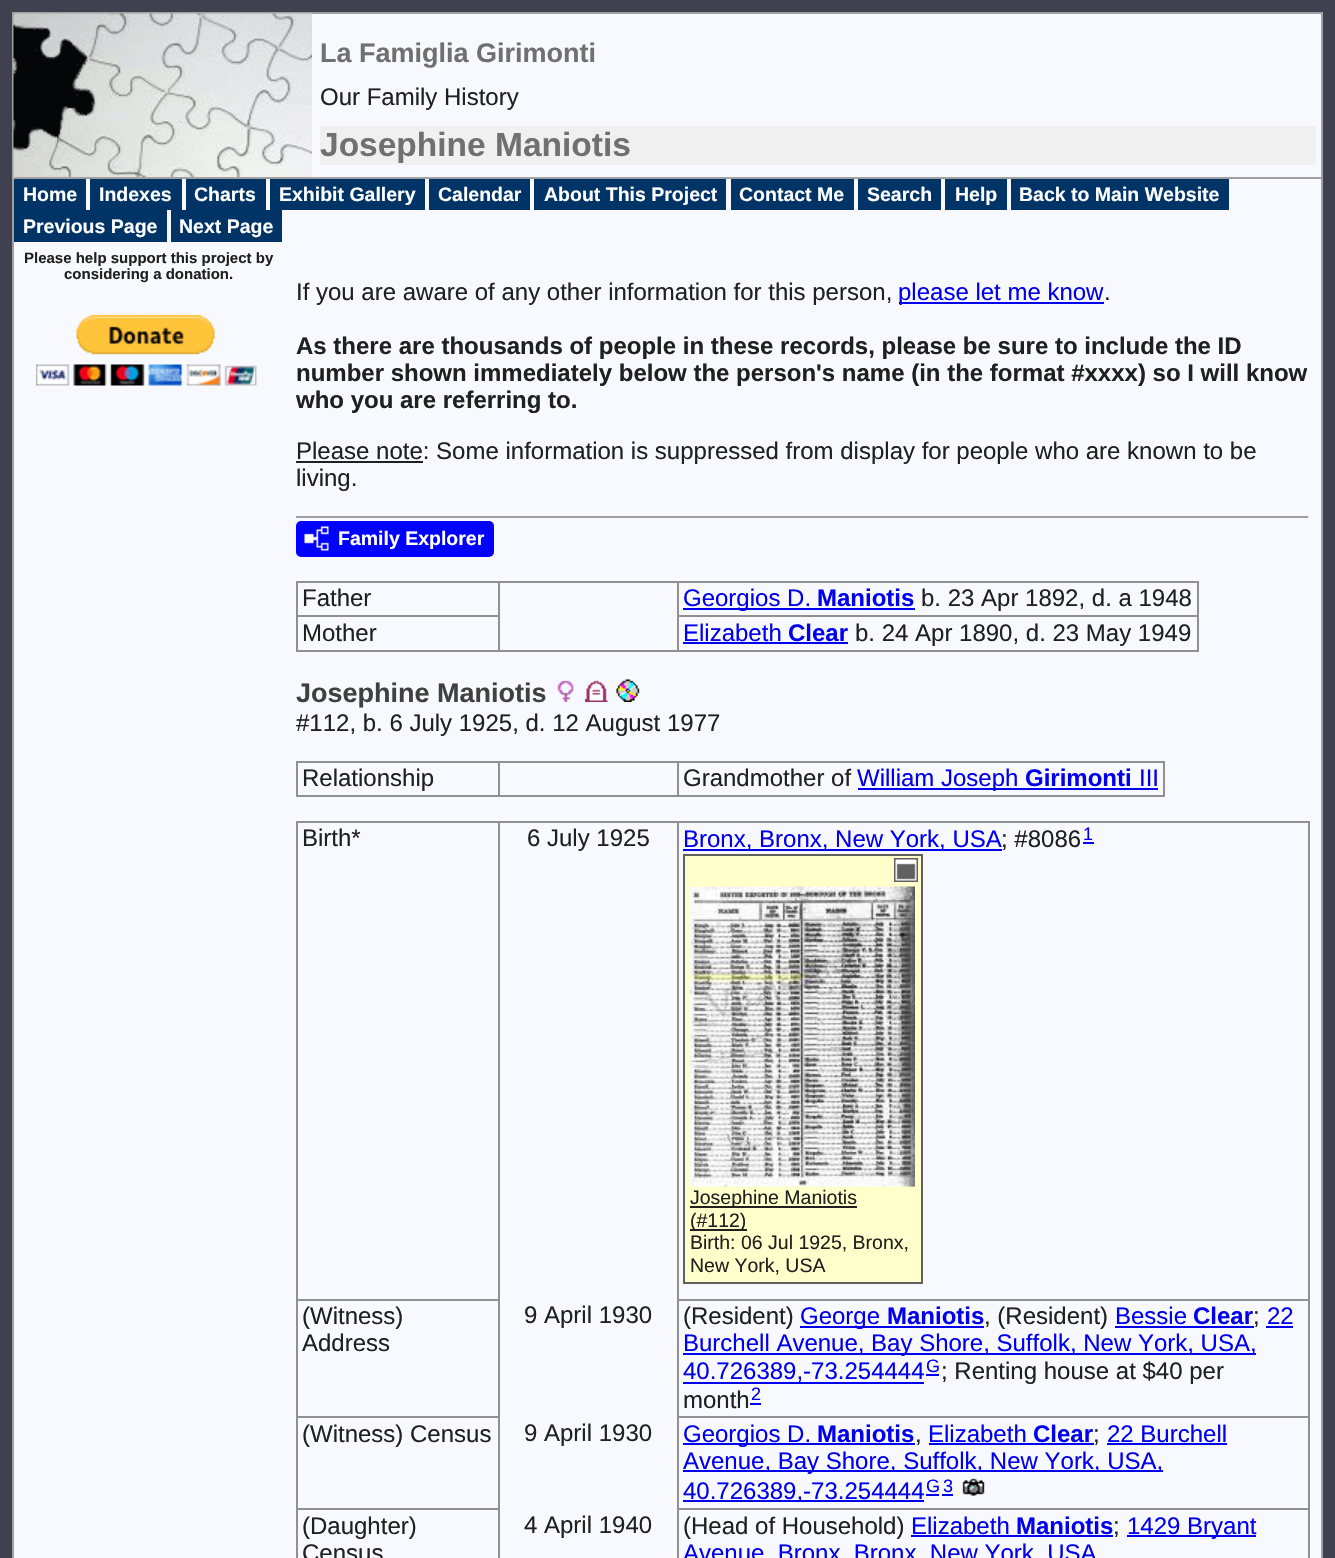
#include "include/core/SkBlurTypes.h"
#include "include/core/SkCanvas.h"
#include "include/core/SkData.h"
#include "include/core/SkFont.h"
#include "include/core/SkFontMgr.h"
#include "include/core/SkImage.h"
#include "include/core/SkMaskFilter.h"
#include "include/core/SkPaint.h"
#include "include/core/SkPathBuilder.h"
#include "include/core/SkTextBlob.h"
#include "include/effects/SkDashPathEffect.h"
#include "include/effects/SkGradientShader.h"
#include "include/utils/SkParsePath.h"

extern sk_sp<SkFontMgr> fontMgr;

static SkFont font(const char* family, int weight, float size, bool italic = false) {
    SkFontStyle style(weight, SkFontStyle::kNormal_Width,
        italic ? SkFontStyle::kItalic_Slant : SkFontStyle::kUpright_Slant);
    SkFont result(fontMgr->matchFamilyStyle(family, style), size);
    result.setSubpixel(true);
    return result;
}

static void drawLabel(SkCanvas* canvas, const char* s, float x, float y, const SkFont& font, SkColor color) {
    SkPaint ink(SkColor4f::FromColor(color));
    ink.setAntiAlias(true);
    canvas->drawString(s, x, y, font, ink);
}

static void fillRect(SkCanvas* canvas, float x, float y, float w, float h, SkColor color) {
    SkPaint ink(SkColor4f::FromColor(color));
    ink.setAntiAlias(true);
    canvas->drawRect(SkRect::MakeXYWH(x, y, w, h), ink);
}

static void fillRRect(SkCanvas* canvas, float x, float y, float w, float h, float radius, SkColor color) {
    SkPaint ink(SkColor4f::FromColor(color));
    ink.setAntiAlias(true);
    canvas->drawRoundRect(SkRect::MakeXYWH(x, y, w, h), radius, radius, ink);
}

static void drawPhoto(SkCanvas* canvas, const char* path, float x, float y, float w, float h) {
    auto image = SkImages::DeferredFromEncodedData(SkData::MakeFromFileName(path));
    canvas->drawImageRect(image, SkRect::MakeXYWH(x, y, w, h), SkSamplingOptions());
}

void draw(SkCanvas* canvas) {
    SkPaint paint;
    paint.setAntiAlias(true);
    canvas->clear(0xFF404050);
    paint.setColor(0xFFF8F8FF);
    canvas->drawRect(SkRect::MakeXYWH(13, 13, 1309, 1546), paint);
    paint.setStroke(true);
    paint.setStrokeWidth(2);
    paint.setColor(0xFFA0A0A0);
    canvas->drawRect(SkRect::MakeXYWH(13, 13, 1309, 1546), paint);
    drawPhoto(canvas, "assets/img1.png", 13, 13, 299, 166);
    fillRect(canvas, 14, 177, 1308, 2, 0xFFA0A0A0);
    SkFont font1 = font("Liberation Sans", 700, 27);
    drawLabel(canvas, "La Famiglia Girimonti", 320, 62, font1, 0xFF707070);
    SkFont font2 = font("Liberation Sans", 400, 24);
    drawLabel(canvas, "Our Family History", 320, 105, font2, 0xFF202020);
    fillRect(canvas, 320, 126, 996, 39, 0xFFF0F0F0);
    SkFont font3 = font("Liberation Sans", 700, 33.5f);
    drawLabel(canvas, "Josephine Maniotis", 320, 156, font3, 0xFF707070);
    fillRect(canvas, 14, 179, 72, 31, 0xFF003366);
    SkFont font4 = font("Liberation Sans", 700, 19.5f);
    drawLabel(canvas, "Home", 23, 201, font4, 0xFFFFFFFF);
    fillRect(canvas, 90, 179, 92, 31, 0xFF003366);
    drawLabel(canvas, "Indexes", 99, 201, font4, 0xFFFFFFFF);
    fillRect(canvas, 186, 179, 80, 31, 0xFF003366);
    drawLabel(canvas, "Charts", 194, 201, font4, 0xFFFFFFFF);
    fillRect(canvas, 270, 179, 155, 31, 0xFF003366);
    drawLabel(canvas, "Exhibit Gallery", 279, 201, font4, 0xFFFFFFFF);
    fillRect(canvas, 429, 179, 101, 31, 0xFF003366);
    drawLabel(canvas, "Calendar", 438, 201, font4, 0xFFFFFFFF);
    fillRect(canvas, 534, 179, 192, 31, 0xFF003366);
    drawLabel(canvas, "About This Project", 544, 201, font4, 0xFFFFFFFF);
    fillRect(canvas, 731, 179, 123, 31, 0xFF003366);
    drawLabel(canvas, "Contact Me", 739, 201, font4, 0xFFFFFFFF);
    fillRect(canvas, 858, 179, 83, 31, 0xFF003366);
    drawLabel(canvas, "Search", 867, 201, font4, 0xFFFFFFFF);
    fillRect(canvas, 945, 179, 62, 31, 0xFF003366);
    drawLabel(canvas, "Help", 955, 201, font4, 0xFFFFFFFF);
    fillRect(canvas, 1011, 179, 218, 31, 0xFF003366);
    drawLabel(canvas, "Back to Main Website", 1019, 201, font4, 0xFFFFFFFF);
    fillRect(canvas, 14, 210, 153, 32, 0xFF003366);
    drawLabel(canvas, "Previous Page", 23, 233, font4, 0xFFFFFFFF);
    fillRect(canvas, 171, 210, 111, 32, 0xFF003366);
    drawLabel(canvas, "Next Page", 179, 233, font4, 0xFFFFFFFF);
    SkFont font5 = font("Liberation Sans", 700, 15);
    drawLabel(canvas, "Please help support this project by", 24, 263, font5, 0xFF202020);
    drawLabel(canvas, "considering a donation.", 64, 279, font5, 0xFF202020);
    drawPhoto(canvas, "assets/img2.png", 36, 315, 221, 71);
    drawLabel(canvas, "If you are aware of any other information for this person,", 296, 300, font2, 0xFF202020);
    fillRect(canvas, 899, 302, 205, 2, 0xFF0000EE);
    drawLabel(canvas, "please let me know", 898, 300, font2, 0xFF0000EE);
    drawLabel(canvas, ".", 1104, 300, font2, 0xFF202020);
    SkFont font6 = font("Liberation Sans", 700, 24);
    drawLabel(canvas, "As there are thousands of people in these records, please be sure to include the ID", 296, 354, font6, 0xFF202020);
    drawLabel(canvas, "number shown immediately below the person's name (in the format #xxxx) so I will know", 296, 381, font6, 0xFF202020);
    drawLabel(canvas, "who you are referring to.", 296, 408, font6, 0xFF202020);
    fillRect(canvas, 296, 461, 127, 2, 0xFF202020);
    drawLabel(canvas, "Please note: Some information is suppressed from display for people who are known to be", 296, 459, font2, 0xFF202020);
    drawLabel(canvas, "living.", 296, 486, font2, 0xFF202020);
    fillRect(canvas, 296, 516, 1014, 2, 0xFF9F9F9F);
    fillRect(canvas, 1308, 516, 2, 2, 0xFFEEEEEE);
    fillRRect(canvas, 296, 521, 198, 36, 5, 0xFF0000FF);
    drawPhoto(canvas, "assets/img3.png", 304, 526, 25, 25);
    drawLabel(canvas, "Family Explorer", 338, 545, font4, 0xFFFFFFFF);
    fillRect(canvas, 296, 581, 903, 2, 0xFF909090);
    fillRect(canvas, 1197, 581, 2, 70, 0xFF909090);
    fillRect(canvas, 296, 650, 903, 2, 0xFF909090);
    fillRect(canvas, 296, 581, 2, 70, 0xFF909090);
    drawLabel(canvas, "Father", 302, 606, font2, 0xFF202020);
    fillRect(canvas, 683, 608, 232, 2, 0xFF0000EE);
    drawLabel(canvas, "Georgios D.", 683, 606, font2, 0xFF0000EE);
    drawLabel(canvas, "Maniotis", 817, 606, font6, 0xFF0000EE);
    drawLabel(canvas, "b. 23 Apr 1892, d. a 1948", 921, 606, font2, 0xFF202020);
    fillRect(canvas, 296, 615, 204, 2, 0xFF909090);
    fillRect(canvas, 498, 581, 2, 70, 0xFF909090);
    drawLabel(canvas, "Mother", 302, 641, font2, 0xFF202020);
    fillRect(canvas, 677, 615, 522, 2, 0xFF909090);
    fillRect(canvas, 677, 581, 2, 70, 0xFF909090);
    drawLabel(canvas, "Elizabeth", 683, 641, font2, 0xFF0000EE);
    fillRect(canvas, 683, 642, 165, 2, 0xFF0000EE);
    drawLabel(canvas, "Clear", 788, 641, font6, 0xFF0000EE);
    drawLabel(canvas, "b. 24 Apr 1890, d. 23 May 1949", 855, 641, font2, 0xFF202020);
    drawLabel(canvas, "Josephine Maniotis", 296, 702, font1, 0xFF404040);
    drawPhoto(canvas, "assets/img4.png", 557, 680, 17, 22);
    drawPhoto(canvas, "assets/img5.png", 585, 680, 23, 22);
    drawPhoto(canvas, "assets/img6.png", 616, 679, 24, 23);
    drawLabel(canvas, "#112, b. 6 July 1925, d. 12 August 1977", 296, 731, font2, 0xFF202020);
    fillRect(canvas, 296, 761, 868, 2, 0xFF909090);
    fillRect(canvas, 1163, 761, 2, 36, 0xFF909090);
    fillRect(canvas, 296, 795, 868, 2, 0xFF909090);
    fillRect(canvas, 296, 761, 2, 36, 0xFF909090);
    fillRect(canvas, 498, 761, 2, 36, 0xFF909090);
    drawLabel(canvas, "Relationship", 302, 786, font2, 0xFF202020);
    fillRect(canvas, 677, 761, 2, 36, 0xFF909090);
    drawLabel(canvas, "Grandmother of", 683, 786, font2, 0xFF202020);
    fillRect(canvas, 858, 788, 300, 2, 0xFF0000EE);
    drawLabel(canvas, "William Joseph", 857, 786, font2, 0xFF0000EE);
    drawLabel(canvas, "Girimonti", 1025, 786, font6, 0xFF0000EE);
    drawLabel(canvas, "III", 1139, 786, font2, 0xFF0000EE);
    fillRect(canvas, 296, 821, 1014, 2, 0xFF909090);
    fillRect(canvas, 1308, 821, 2, 737, 0xFF909090);
    fillRect(canvas, 296, 821, 2, 737, 0xFF909090);
    drawLabel(canvas, "Birth*", 302, 846, font2, 0xFF202020);
    drawLabel(canvas, "6 July 1925", 527, 846, font2, 0xFF202020);
    fillRect(canvas, 683, 849, 319, 2, 0xFF0000EE);
    drawLabel(canvas, "Bronx, Bronx, New York, USA", 683, 847, font2, 0xFF0000EE);
    drawLabel(canvas, "; #8086", 1001, 847, font2, 0xFF202020);
    SkFont font7 = font("Liberation Sans", 400, 18);
    drawLabel(canvas, "1", 1083, 840, font7, 0xFF0000EE);
    fillRect(canvas, 1083, 842, 11, 2, 0xFF0000EE);
    paint.setStroke(false);
    paint.setColor(0xFFFFFFCC);
    canvas->drawRect(SkRect::MakeXYWH(684, 855, 238, 428), paint);
    paint.setStroke(true);
    paint.setColor(0xFF606060);
    canvas->drawRect(SkRect::MakeXYWH(684, 855, 238, 428), paint);
    fillRect(canvas, 894, 858, 24, 24, 0xFF606060);
    drawPhoto(canvas, "assets/img7.png", 895, 859, 22, 22);
    drawPhoto(canvas, "assets/img8.png", 690, 886, 225, 301);
    fillRect(canvas, 690, 1206, 167, 2, 0xFF202020);
    SkFont font8 = font("Liberation Sans", 400, 19.5f);
    drawLabel(canvas, "Josephine Maniotis", 690, 1204, font8, 0xFF202020);
    fillRect(canvas, 690, 1229, 57, 2, 0xFF202020);
    drawLabel(canvas, "(#112)", 690, 1227, font8, 0xFF202020);
    drawLabel(canvas, "Birth: 06 Jul 1925, Bronx,", 690, 1249, font8, 0xFF202020);
    drawLabel(canvas, "New York, USA", 690, 1272, font8, 0xFF202020);
    fillRect(canvas, 296, 1299, 204, 2, 0xFF909090);
    fillRect(canvas, 296, 1416, 204, 2, 0xFF909090);
    fillRect(canvas, 296, 1508, 204, 2, 0xFF909090);
    fillRect(canvas, 498, 1508, 2, 50, 0xFF909090);
    fillRect(canvas, 498, 1416, 2, 93, 0xFF909090);
    fillRect(canvas, 498, 821, 2, 597, 0xFF909090);
    drawLabel(canvas, "(Witness)", 302, 1324, font2, 0xFF202020);
    drawLabel(canvas, "Address", 302, 1351, font2, 0xFF202020);
    drawLabel(canvas, "9 April 1930", 524, 1323, font2, 0xFF202020);
    fillRect(canvas, 677, 1299, 633, 2, 0xFF909090);
    fillRect(canvas, 677, 1416, 633, 2, 0xFF909090);
    fillRect(canvas, 677, 1508, 633, 2, 0xFF909090);
    fillRect(canvas, 677, 1508, 2, 50, 0xFF909090);
    fillRect(canvas, 677, 1416, 2, 93, 0xFF909090);
    fillRect(canvas, 677, 821, 2, 597, 0xFF909090);
    drawLabel(canvas, "(Resident)", 683, 1324, font2, 0xFF202020);
    fillRect(canvas, 800, 1326, 184, 2, 0xFF0000EE);
    drawLabel(canvas, "George", 800, 1324, font2, 0xFF0000EE);
    drawLabel(canvas, "Maniotis", 887, 1324, font6, 0xFF0000EE);
    drawLabel(canvas, ", (Resident)", 984, 1324, font2, 0xFF202020);
    drawLabel(canvas, "Bessie", 1115, 1324, font2, 0xFF0000EE);
    fillRect(canvas, 1115, 1326, 139, 2, 0xFF0000EE);
    drawLabel(canvas, "Clear", 1193, 1324, font6, 0xFF0000EE);
    drawLabel(canvas, ";", 1253, 1324, font2, 0xFF202020);
    drawLabel(canvas, "22", 1267, 1324, font2, 0xFF0000EE);
    fillRect(canvas, 1266, 1326, 27, 2, 0xFF0000EE);
    fillRect(canvas, 683, 1353, 573, 2, 0xFF0000EE);
    drawLabel(canvas, "Burchell Avenue, Bay Shore, Suffolk, New York, USA,", 683, 1351, font2, 0xFF0000EE);
    fillRect(canvas, 683, 1382, 241, 2, 0xFF0000EE);
    drawLabel(canvas, "40.726389,-73.254444", 683, 1379, font2, 0xFF0000EE);
    drawLabel(canvas, "G", 926, 1372, font7, 0xFF0000EE);
    fillRect(canvas, 926, 1374, 13, 2, 0xFF0000EE);
    drawLabel(canvas, "; Renting house at $40 per", 941, 1379, font2, 0xFF202020);
    drawLabel(canvas, "month", 683, 1408, font2, 0xFF202020);
    drawLabel(canvas, "2", 751, 1400, font7, 0xFF0000EE);
    fillRect(canvas, 750, 1403, 11, 2, 0xFF0000EE);
    drawLabel(canvas, "(Witness) Census", 302, 1442, font2, 0xFF202020);
    drawLabel(canvas, "9 April 1930", 524, 1441, font2, 0xFF202020);
    fillRect(canvas, 683, 1443, 232, 2, 0xFF0000EE);
    drawLabel(canvas, "Georgios D.", 683, 1442, font2, 0xFF0000EE);
    drawLabel(canvas, "Maniotis", 817, 1442, font6, 0xFF0000EE);
    drawLabel(canvas, ",", 915, 1442, font2, 0xFF202020);
    drawLabel(canvas, "Elizabeth", 928, 1442, font2, 0xFF0000EE);
    fillRect(canvas, 929, 1443, 165, 2, 0xFF0000EE);
    drawLabel(canvas, "Clear", 1033, 1442, font6, 0xFF0000EE);
    drawLabel(canvas, ";", 1093, 1442, font2, 0xFF202020);
    drawLabel(canvas, "22 Burchell", 1107, 1442, font2, 0xFF0000EE);
    fillRect(canvas, 1107, 1443, 120, 2, 0xFF0000EE);
    fillRect(canvas, 683, 1470, 480, 2, 0xFF0000EE);
    drawLabel(canvas, "Avenue, Bay Shore, Suffolk, New York, USA,", 683, 1469, font2, 0xFF0000EE);
    fillRect(canvas, 683, 1500, 241, 2, 0xFF0000EE);
    drawLabel(canvas, "40.726389,-73.254444", 683, 1499, font2, 0xFF0000EE);
    drawLabel(canvas, "G", 926, 1492, font7, 0xFF0000EE);
    fillRect(canvas, 926, 1494, 13, 2, 0xFF0000EE);
    drawLabel(canvas, "3", 943, 1492, font7, 0xFF0000EE);
    fillRect(canvas, 942, 1494, 11, 2, 0xFF0000EE);
    drawPhoto(canvas, "assets/img9.png", 962, 1478, 23, 18);
    drawLabel(canvas, "(Daughter)", 302, 1534, font2, 0xFF202020);
    drawLabel(canvas, "Census", 302, 1561, font2, 0xFF202020);
    drawLabel(canvas, "4 April 1940", 524, 1533, font2, 0xFF202020);
    drawLabel(canvas, "(Head of Household)", 683, 1534, font2, 0xFF202020);
    drawLabel(canvas, "Elizabeth", 911, 1534, font2, 0xFF0000EE);
    fillRect(canvas, 911, 1535, 202, 2, 0xFF0000EE);
    drawLabel(canvas, "Maniotis", 1016, 1534, font6, 0xFF0000EE);
    drawLabel(canvas, ";", 1113, 1534, font2, 0xFF202020);
    fillRect(canvas, 1127, 1535, 129, 2, 0xFF0000EE);
    drawLabel(canvas, "1429 Bryant", 1127, 1534, font2, 0xFF0000EE);
    drawLabel(canvas, "Avenue, Bronx, Bronx, New York, USA", 683, 1561, font2, 0xFF0000EE);
}
